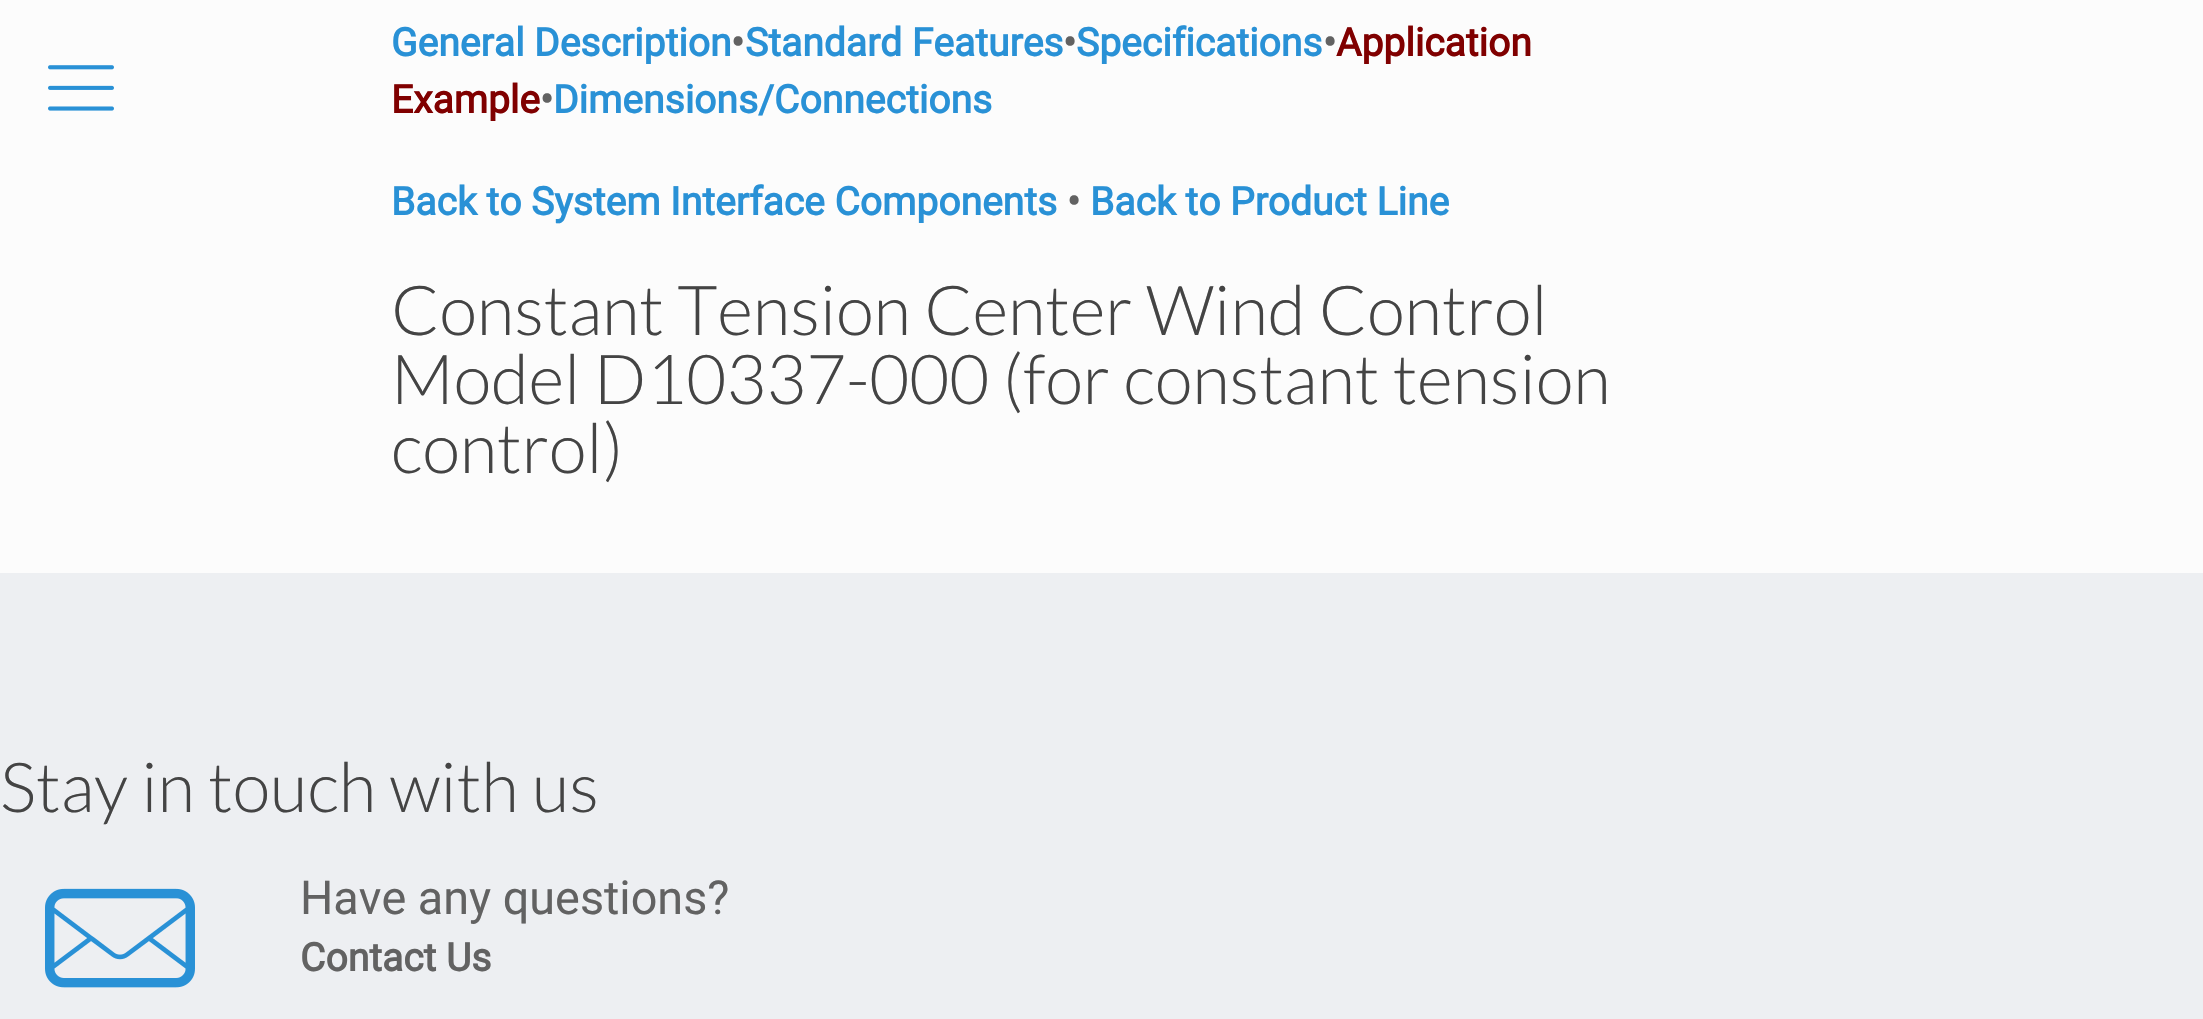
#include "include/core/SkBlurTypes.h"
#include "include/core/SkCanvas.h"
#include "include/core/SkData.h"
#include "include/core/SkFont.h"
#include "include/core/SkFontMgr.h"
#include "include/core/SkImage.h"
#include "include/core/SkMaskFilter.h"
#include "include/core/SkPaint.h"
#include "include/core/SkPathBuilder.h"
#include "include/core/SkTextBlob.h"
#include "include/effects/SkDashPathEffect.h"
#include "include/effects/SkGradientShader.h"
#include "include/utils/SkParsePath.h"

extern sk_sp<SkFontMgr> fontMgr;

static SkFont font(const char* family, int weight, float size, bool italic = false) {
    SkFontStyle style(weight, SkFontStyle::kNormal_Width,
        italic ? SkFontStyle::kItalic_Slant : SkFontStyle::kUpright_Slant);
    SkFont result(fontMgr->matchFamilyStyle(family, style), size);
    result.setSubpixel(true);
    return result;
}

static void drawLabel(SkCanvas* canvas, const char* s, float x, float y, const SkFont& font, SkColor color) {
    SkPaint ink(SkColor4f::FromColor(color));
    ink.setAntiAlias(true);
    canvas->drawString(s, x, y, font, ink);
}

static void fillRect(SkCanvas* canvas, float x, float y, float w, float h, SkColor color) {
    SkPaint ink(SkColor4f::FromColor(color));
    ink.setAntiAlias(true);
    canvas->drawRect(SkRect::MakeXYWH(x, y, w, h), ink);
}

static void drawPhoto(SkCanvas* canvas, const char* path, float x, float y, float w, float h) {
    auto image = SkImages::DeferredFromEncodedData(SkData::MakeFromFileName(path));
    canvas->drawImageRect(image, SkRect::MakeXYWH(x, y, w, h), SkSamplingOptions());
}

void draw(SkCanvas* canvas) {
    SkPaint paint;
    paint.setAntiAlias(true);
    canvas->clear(0xFFFCFCFC);
    drawPhoto(canvas, "assets/img1.png", 48, 65, 66, 46);
    SkFont font1 = font("Roboto", 700, 39);
    drawLabel(canvas, "General Description", 391, 56, font1, 0xFF2991D6);
    drawLabel(canvas, "•", 731, 56, font1, 0xFF626262);
    drawLabel(canvas, "Standard Features", 745, 56, font1, 0xFF2991D6);
    drawLabel(canvas, "•", 1063, 56, font1, 0xFF626262);
    drawLabel(canvas, "Specifications", 1076, 56, font1, 0xFF2991D6);
    drawLabel(canvas, "•", 1323, 56, font1, 0xFF626262);
    drawLabel(canvas, "Application", 1336, 56, font1, 0xFF800000);
    drawLabel(canvas, "Example", 391, 113, font1, 0xFF800000);
    drawLabel(canvas, "•", 540, 113, font1, 0xFF626262);
    drawLabel(canvas, "Dimensions/Connections", 553, 113, font1, 0xFF2991D6);
    drawLabel(canvas, "Back to System Interface Components", 391, 215, font1, 0xFF2991D6);
    drawLabel(canvas, "•", 1067, 215, font1, 0xFF626262);
    drawLabel(canvas, "Back to Product Line", 1090, 215, font1, 0xFF2991D6);
    SkFont font2 = font("Lato", 300, 69);
    drawLabel(canvas, "Constant Tension Center Wind Control", 391, 335, font2, 0xFF444444);
    drawLabel(canvas, "Model D10337-000 (for constant tension", 391, 404, font2, 0xFF444444);
    drawLabel(canvas, "control)", 391, 473, font2, 0xFF444444);
    fillRect(canvas, 0, 573, 2203, 446, 0xFFEDEFF2);
    drawLabel(canvas, "Stay in touch with us", 0, 812, font2, 0xFF444444);
    drawPhoto(canvas, "assets/img2.png", 45, 888, 150, 100);
    SkFont font3 = font("Roboto", 400, 46.75f);
    drawLabel(canvas, "Have any questions?", 300, 914, font3, 0xFF626262);
    drawLabel(canvas, "Contact Us", 300, 971, font1, 0xFF626262);
}
